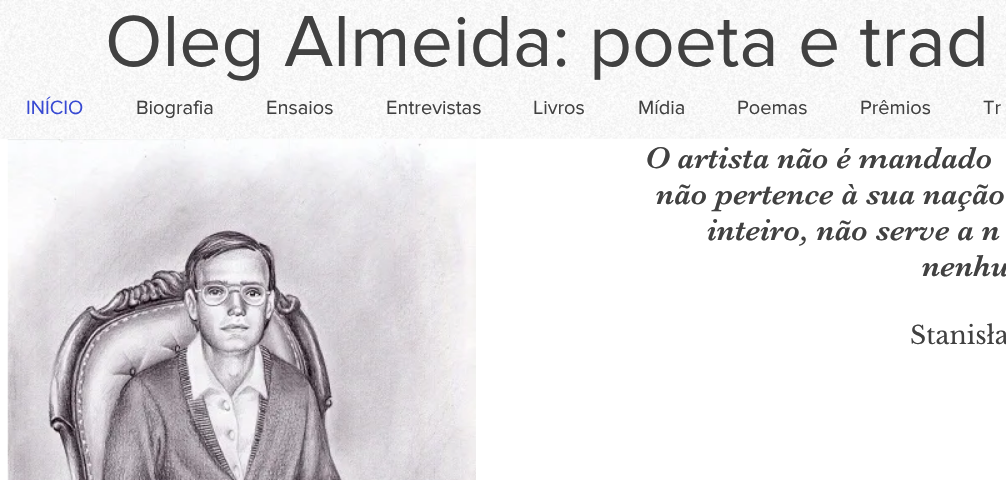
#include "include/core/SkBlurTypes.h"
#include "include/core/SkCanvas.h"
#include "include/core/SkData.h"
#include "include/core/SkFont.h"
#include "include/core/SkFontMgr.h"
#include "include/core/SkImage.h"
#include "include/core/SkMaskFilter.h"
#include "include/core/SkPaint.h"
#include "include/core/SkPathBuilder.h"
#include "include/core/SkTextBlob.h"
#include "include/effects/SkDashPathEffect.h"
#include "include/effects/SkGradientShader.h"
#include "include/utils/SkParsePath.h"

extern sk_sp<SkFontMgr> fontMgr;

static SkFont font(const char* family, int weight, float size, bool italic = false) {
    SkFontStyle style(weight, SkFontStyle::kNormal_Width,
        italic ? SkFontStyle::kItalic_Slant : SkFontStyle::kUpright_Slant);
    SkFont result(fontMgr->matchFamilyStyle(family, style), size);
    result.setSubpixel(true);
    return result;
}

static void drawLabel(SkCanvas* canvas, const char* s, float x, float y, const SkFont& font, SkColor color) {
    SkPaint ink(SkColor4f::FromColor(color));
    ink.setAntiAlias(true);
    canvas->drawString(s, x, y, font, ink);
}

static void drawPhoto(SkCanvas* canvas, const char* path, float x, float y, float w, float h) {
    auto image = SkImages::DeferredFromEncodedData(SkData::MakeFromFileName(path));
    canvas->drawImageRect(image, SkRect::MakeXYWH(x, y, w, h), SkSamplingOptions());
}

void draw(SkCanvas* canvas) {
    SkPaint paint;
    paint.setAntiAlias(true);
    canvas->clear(0xFFFFFFFF);
    drawPhoto(canvas, "assets/img1.png", 0, 0, 1006, 139);
    SkFont font1 = font("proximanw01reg", 400, 75);
    drawLabel(canvas, "Oleg Almeida: poeta e trad", 105, 66, font1, 0xFF414141);
    SkFont font2 = font("proximanw01reg", 400, 20);
    drawLabel(canvas, "INÍCIO", 26, 114, font2, 0xFF384AD3);
    drawLabel(canvas, "Biografia", 136, 114, font2, 0xFF414141);
    drawLabel(canvas, "Ensaios", 266, 114, font2, 0xFF414141);
    drawLabel(canvas, "Entrevistas", 386, 114, font2, 0xFF414141);
    drawLabel(canvas, "Livros", 533, 114, font2, 0xFF414141);
    drawLabel(canvas, "Mídia", 638, 114, font2, 0xFF414141);
    drawLabel(canvas, "Poemas", 737, 114, font2, 0xFF414141);
    drawLabel(canvas, "Prêmios", 860, 114, font2, 0xFF414141);
    drawLabel(canvas, "Tr", 983, 114, font2, 0xFF414141);
    drawPhoto(canvas, "assets/img2.png", 7, 139, 469, 341);
    SkFont font3 = font("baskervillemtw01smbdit", 400, 31.25f);
    drawLabel(canvas, "O artista não é mandado", 645, 168, font3, 0xFF414141);
    drawLabel(canvas, "não pertence à sua nação", 656, 204, font3, 0xFF414141);
    drawLabel(canvas, "inteiro, não serve a n", 707, 240, font3, 0xFF414141);
    drawLabel(canvas, "nenhu", 922, 276, font3, 0xFF414141);
    SkFont font4 = font("Libre Baskerville", 400, 25);
    drawLabel(canvas, "Stanisła", 910, 344, font4, 0xFF414141);
}
